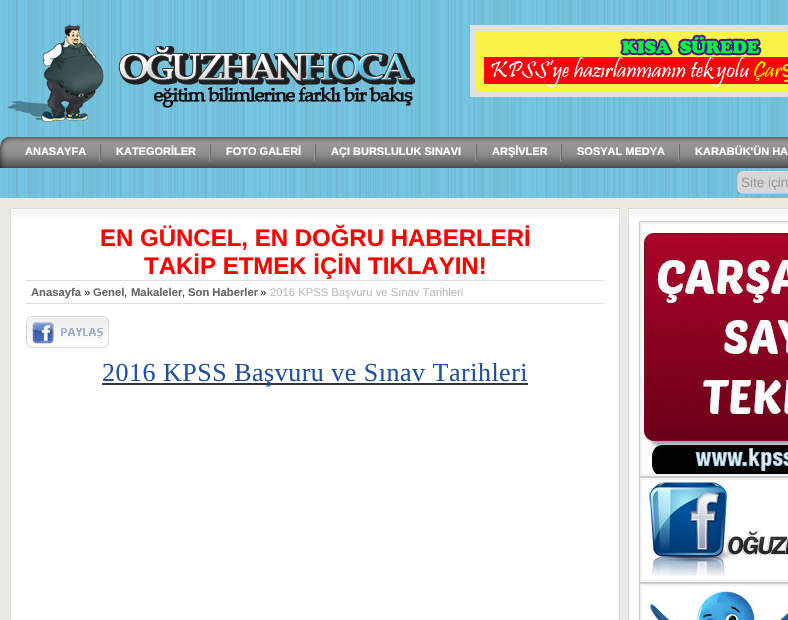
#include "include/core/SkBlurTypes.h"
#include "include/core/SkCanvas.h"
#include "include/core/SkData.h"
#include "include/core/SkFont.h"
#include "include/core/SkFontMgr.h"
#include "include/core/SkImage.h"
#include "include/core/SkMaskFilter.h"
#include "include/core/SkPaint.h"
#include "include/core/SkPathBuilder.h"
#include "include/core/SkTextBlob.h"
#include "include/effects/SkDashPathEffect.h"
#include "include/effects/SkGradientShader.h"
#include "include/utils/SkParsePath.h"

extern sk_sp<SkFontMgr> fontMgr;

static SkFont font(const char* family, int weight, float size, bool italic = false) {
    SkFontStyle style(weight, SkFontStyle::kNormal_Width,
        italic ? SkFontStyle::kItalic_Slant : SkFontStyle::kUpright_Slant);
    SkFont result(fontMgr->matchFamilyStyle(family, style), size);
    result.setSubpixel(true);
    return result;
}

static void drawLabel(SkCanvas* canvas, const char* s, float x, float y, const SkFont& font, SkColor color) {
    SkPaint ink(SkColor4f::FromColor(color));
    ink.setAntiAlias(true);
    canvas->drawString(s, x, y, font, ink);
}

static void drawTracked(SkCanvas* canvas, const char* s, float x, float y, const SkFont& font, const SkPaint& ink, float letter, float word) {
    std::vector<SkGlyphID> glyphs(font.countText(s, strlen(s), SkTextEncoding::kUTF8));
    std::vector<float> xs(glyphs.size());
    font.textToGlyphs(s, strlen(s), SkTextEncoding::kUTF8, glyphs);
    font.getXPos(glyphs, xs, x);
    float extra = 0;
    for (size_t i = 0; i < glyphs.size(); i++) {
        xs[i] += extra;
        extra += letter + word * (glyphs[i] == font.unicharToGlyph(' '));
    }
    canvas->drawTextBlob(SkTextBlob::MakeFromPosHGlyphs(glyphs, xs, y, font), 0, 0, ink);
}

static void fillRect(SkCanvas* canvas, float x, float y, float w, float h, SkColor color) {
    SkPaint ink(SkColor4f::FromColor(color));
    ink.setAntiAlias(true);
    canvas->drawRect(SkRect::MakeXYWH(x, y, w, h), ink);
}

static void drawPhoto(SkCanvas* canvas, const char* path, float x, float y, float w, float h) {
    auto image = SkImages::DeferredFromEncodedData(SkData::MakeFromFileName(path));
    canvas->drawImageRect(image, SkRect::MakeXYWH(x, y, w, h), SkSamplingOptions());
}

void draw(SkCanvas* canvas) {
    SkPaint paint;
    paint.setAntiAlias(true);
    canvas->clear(0xFFFFFFFF);
    drawPhoto(canvas, "assets/img1.png", 0, 0, 788, 198);
    drawPhoto(canvas, "assets/img2.png", 7, 24, 409, 98);
    paint.setStroke(true);
    paint.setStrokeWidth(6);
    paint.setColor(0xFFE1DFDF);
    canvas->drawRect(SkRect::MakeXYWH(473, 28, 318, 66), paint);
    drawPhoto(canvas, "assets/img3.png", 476, 31, 312, 60);
    drawPhoto(canvas, "assets/img4.png", 0, 137, 788, 31);
    drawPhoto(canvas, "assets/img5.png", 99, 144, 2, 17);
    SkFont font1 = font("Liberation Sans", 700, 11);
    drawLabel(canvas, "ANASAYFA", 25, 155, font1, 0xFFFFFFFF);
    drawPhoto(canvas, "assets/img5.png", 209, 144, 2, 17);
    drawLabel(canvas, "KATEGORİLER", 116, 155, font1, 0xFFFFFFFF);
    drawPhoto(canvas, "assets/img5.png", 314, 144, 2, 17);
    drawLabel(canvas, "FOTO GALERİ", 226, 155, font1, 0xFFFFFFFF);
    drawPhoto(canvas, "assets/img5.png", 475, 144, 2, 17);
    drawLabel(canvas, "AÇI BURSLULUK SINAVI", 331, 155, font1, 0xFFFFFFFF);
    drawPhoto(canvas, "assets/img5.png", 560, 144, 2, 17);
    drawLabel(canvas, "ARŞİVLER", 492, 155, font1, 0xFFFFFFFF);
    drawPhoto(canvas, "assets/img5.png", 678, 144, 2, 17);
    drawLabel(canvas, "SOSYAL MEDYA", 577, 155, font1, 0xFFFFFFFF);
    drawLabel(canvas, "KARABÜK'ÜN HA", 695, 155, font1, 0xFFFFFFFF);
    drawPhoto(canvas, "assets/img6.png", 737, 171, 51, 23);
    SkFont font2 = font("Liberation Sans", 400, 13.5f);
    drawLabel(canvas, "Site için", 741, 187, font2, 0xFF999999);
    fillRect(canvas, 0, 198, 788, 422, 0xFFEBE9E1);
    fillRect(canvas, 11, 209, 608, 411, 0xFFFFFFFF);
    drawPhoto(canvas, "assets/img7.png", 11, 210, 608, 7);
    paint.setStrokeWidth(1);
    paint.setColor(0xFFDDDDDD);
    canvas->drawRect(SkRect::MakeXYWH(10.5f, 208.5f, 609, 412), paint);
    SkFont font3 = font("Liberation Sans", 700, 24);
    drawLabel(canvas, "EN GÜNCEL, EN DOĞRU HABERLERİ", 100, 246, font3, 0xFFFF0000);
    drawLabel(canvas, "TAKİP ETMEK İÇİN TIKLAYIN!", 144, 274, font3, 0xFFFF0000);
    fillRect(canvas, 26, 280, 578, 1, 0xFFDDDDDD);
    fillRect(canvas, 26, 303, 578, 1, 0xFFDDDDDD);
    SkFont font4 = font("Liberation Sans", 700, 11.25f);
    drawLabel(canvas, "Anasayfa", 31, 296, font4, 0xFF666666);
    SkFont font5 = font("Liberation Sans", 400, 11.25f);
    drawLabel(canvas, "»", 84, 296, font5, 0xFF333333);
    drawLabel(canvas, "Genel", 93, 296, font4, 0xFF666666);
    drawLabel(canvas, ",", 124, 296, font5, 0xFF333333);
    drawLabel(canvas, "Makaleler", 131, 296, font4, 0xFF666666);
    drawLabel(canvas, ",", 182, 296, font5, 0xFF333333);
    drawLabel(canvas, "Son Haberler", 188, 296, font4, 0xFF666666);
    drawLabel(canvas, "»", 260, 296, font5, 0xFF333333);
    drawLabel(canvas, "2016 KPSS Başvuru ve Sınav Tarihleri", 270, 296, font5, 0xFFBBBBBB);
    drawPhoto(canvas, "assets/img8.png", 26, 316, 83, 32);
    fillRect(canvas, 102, 383, 426, 2, 0xFF333333);
    SkFont font6 = font("Liberation Serif", 400, 26);
    paint.setStroke(false);
    paint.setColor(0xFF2051A1);
    drawTracked(canvas, "2016 KPSS Başvuru ve Sınav Tarihleri", 102, 381, font6, paint, 0.5f, 0);
    fillRect(canvas, 629, 209, 159, 411, 0xFFFFFFFF);
    drawPhoto(canvas, "assets/img9.png", 629, 210, 159, 7);
    paint.setStroke(true);
    paint.setColor(0xFFDDDDDD);
    canvas->drawRect(SkRect::MakeXYWH(628.5f, 208.5f, 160, 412), paint);
    paint.setStroke(false);
    paint.setColor(0xFFF1F1F1);
    canvas->drawRect(SkRect::MakeXYWH(639.5f, 221.5f, 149, 255), paint);
    paint.setStroke(true);
    paint.setColor(0xFFCCCCCC);
    canvas->drawRect(SkRect::MakeXYWH(639.5f, 221.5f, 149, 255), paint);
    drawPhoto(canvas, "assets/img10.png", 642, 224, 146, 250);
    paint.setStroke(false);
    paint.setColor(0xFFF1F1F1);
    canvas->drawRect(SkRect::MakeXYWH(639.5f, 477.5f, 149, 105), paint);
    paint.setStroke(true);
    paint.setColor(0xFFCCCCCC);
    canvas->drawRect(SkRect::MakeXYWH(639.5f, 477.5f, 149, 105), paint);
    drawPhoto(canvas, "assets/img11.png", 642, 480, 146, 100);
    paint.setStroke(false);
    paint.setColor(0xFFF1F1F1);
    canvas->drawRect(SkRect::MakeXYWH(639.5f, 583.5f, 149, 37), paint);
    paint.setStroke(true);
    paint.setColor(0xFFCCCCCC);
    canvas->drawRect(SkRect::MakeXYWH(639.5f, 583.5f, 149, 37), paint);
    drawPhoto(canvas, "assets/img12.png", 642, 586, 146, 34);
}
